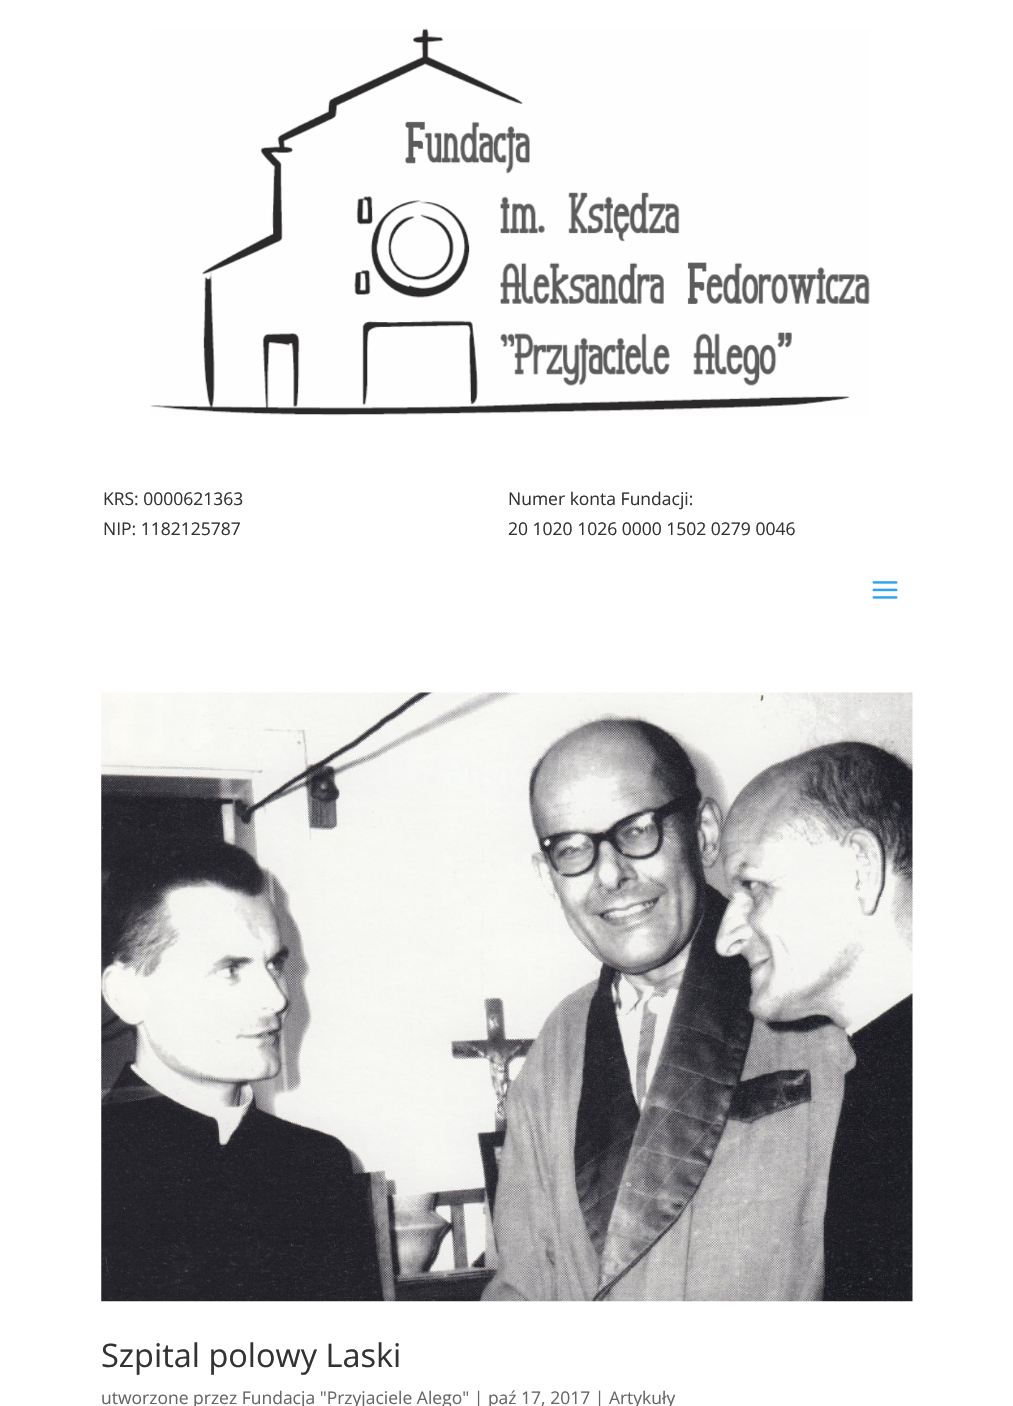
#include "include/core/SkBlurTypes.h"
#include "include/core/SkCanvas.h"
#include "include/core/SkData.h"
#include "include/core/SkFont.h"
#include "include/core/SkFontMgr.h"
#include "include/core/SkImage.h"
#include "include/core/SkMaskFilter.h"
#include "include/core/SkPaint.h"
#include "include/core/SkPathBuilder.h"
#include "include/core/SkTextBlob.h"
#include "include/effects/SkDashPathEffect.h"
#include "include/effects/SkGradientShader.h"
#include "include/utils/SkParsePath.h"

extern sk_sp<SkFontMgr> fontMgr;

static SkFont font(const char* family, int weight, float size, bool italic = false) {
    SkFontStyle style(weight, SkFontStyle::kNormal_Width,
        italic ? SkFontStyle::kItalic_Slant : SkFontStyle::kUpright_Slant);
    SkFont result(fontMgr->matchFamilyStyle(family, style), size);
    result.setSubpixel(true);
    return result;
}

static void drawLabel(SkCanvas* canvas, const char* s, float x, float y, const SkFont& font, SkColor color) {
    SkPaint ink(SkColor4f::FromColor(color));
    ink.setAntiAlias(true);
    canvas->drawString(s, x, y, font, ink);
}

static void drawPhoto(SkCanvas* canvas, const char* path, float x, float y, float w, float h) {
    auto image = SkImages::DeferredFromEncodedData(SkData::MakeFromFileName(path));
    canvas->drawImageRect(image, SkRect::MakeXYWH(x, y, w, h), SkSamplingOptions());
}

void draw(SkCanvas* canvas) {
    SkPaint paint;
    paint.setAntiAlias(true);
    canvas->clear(0xFFFFFFFF);
    drawPhoto(canvas, "assets/img1.png", 150, 28, 720, 388);
    SkFont font1 = font("Open Sans", 400, 17.5f);
    drawLabel(canvas, "KRS: 0000621363", 103, 505, font1, 0xFF333333);
    drawLabel(canvas, "NIP: 1182125787", 103, 535, font1, 0xFF333333);
    drawLabel(canvas, "Numer konta Fundacji:", 508, 505, font1, 0xFF333333);
    drawLabel(canvas, "20 1020 1026 0000 1502 0279 0046", 508, 535, font1, 0xFF333333);
    drawPhoto(canvas, "assets/img2.png", 872, 581, 26, 18);
    drawPhoto(canvas, "assets/img3.png", 101, 692, 812, 610);
    SkFont font2 = font("Open Sans", 400, 32.5f);
    drawLabel(canvas, "Szpital polowy Laski", 101, 1367, font2, 0xFF333333);
    drawLabel(canvas, "utworzone przez Fundacja \"Przyjaciele Alego\" | paź 17, 2017 | Artykuły", 101, 1404, font1, 0xFF666666);
}
